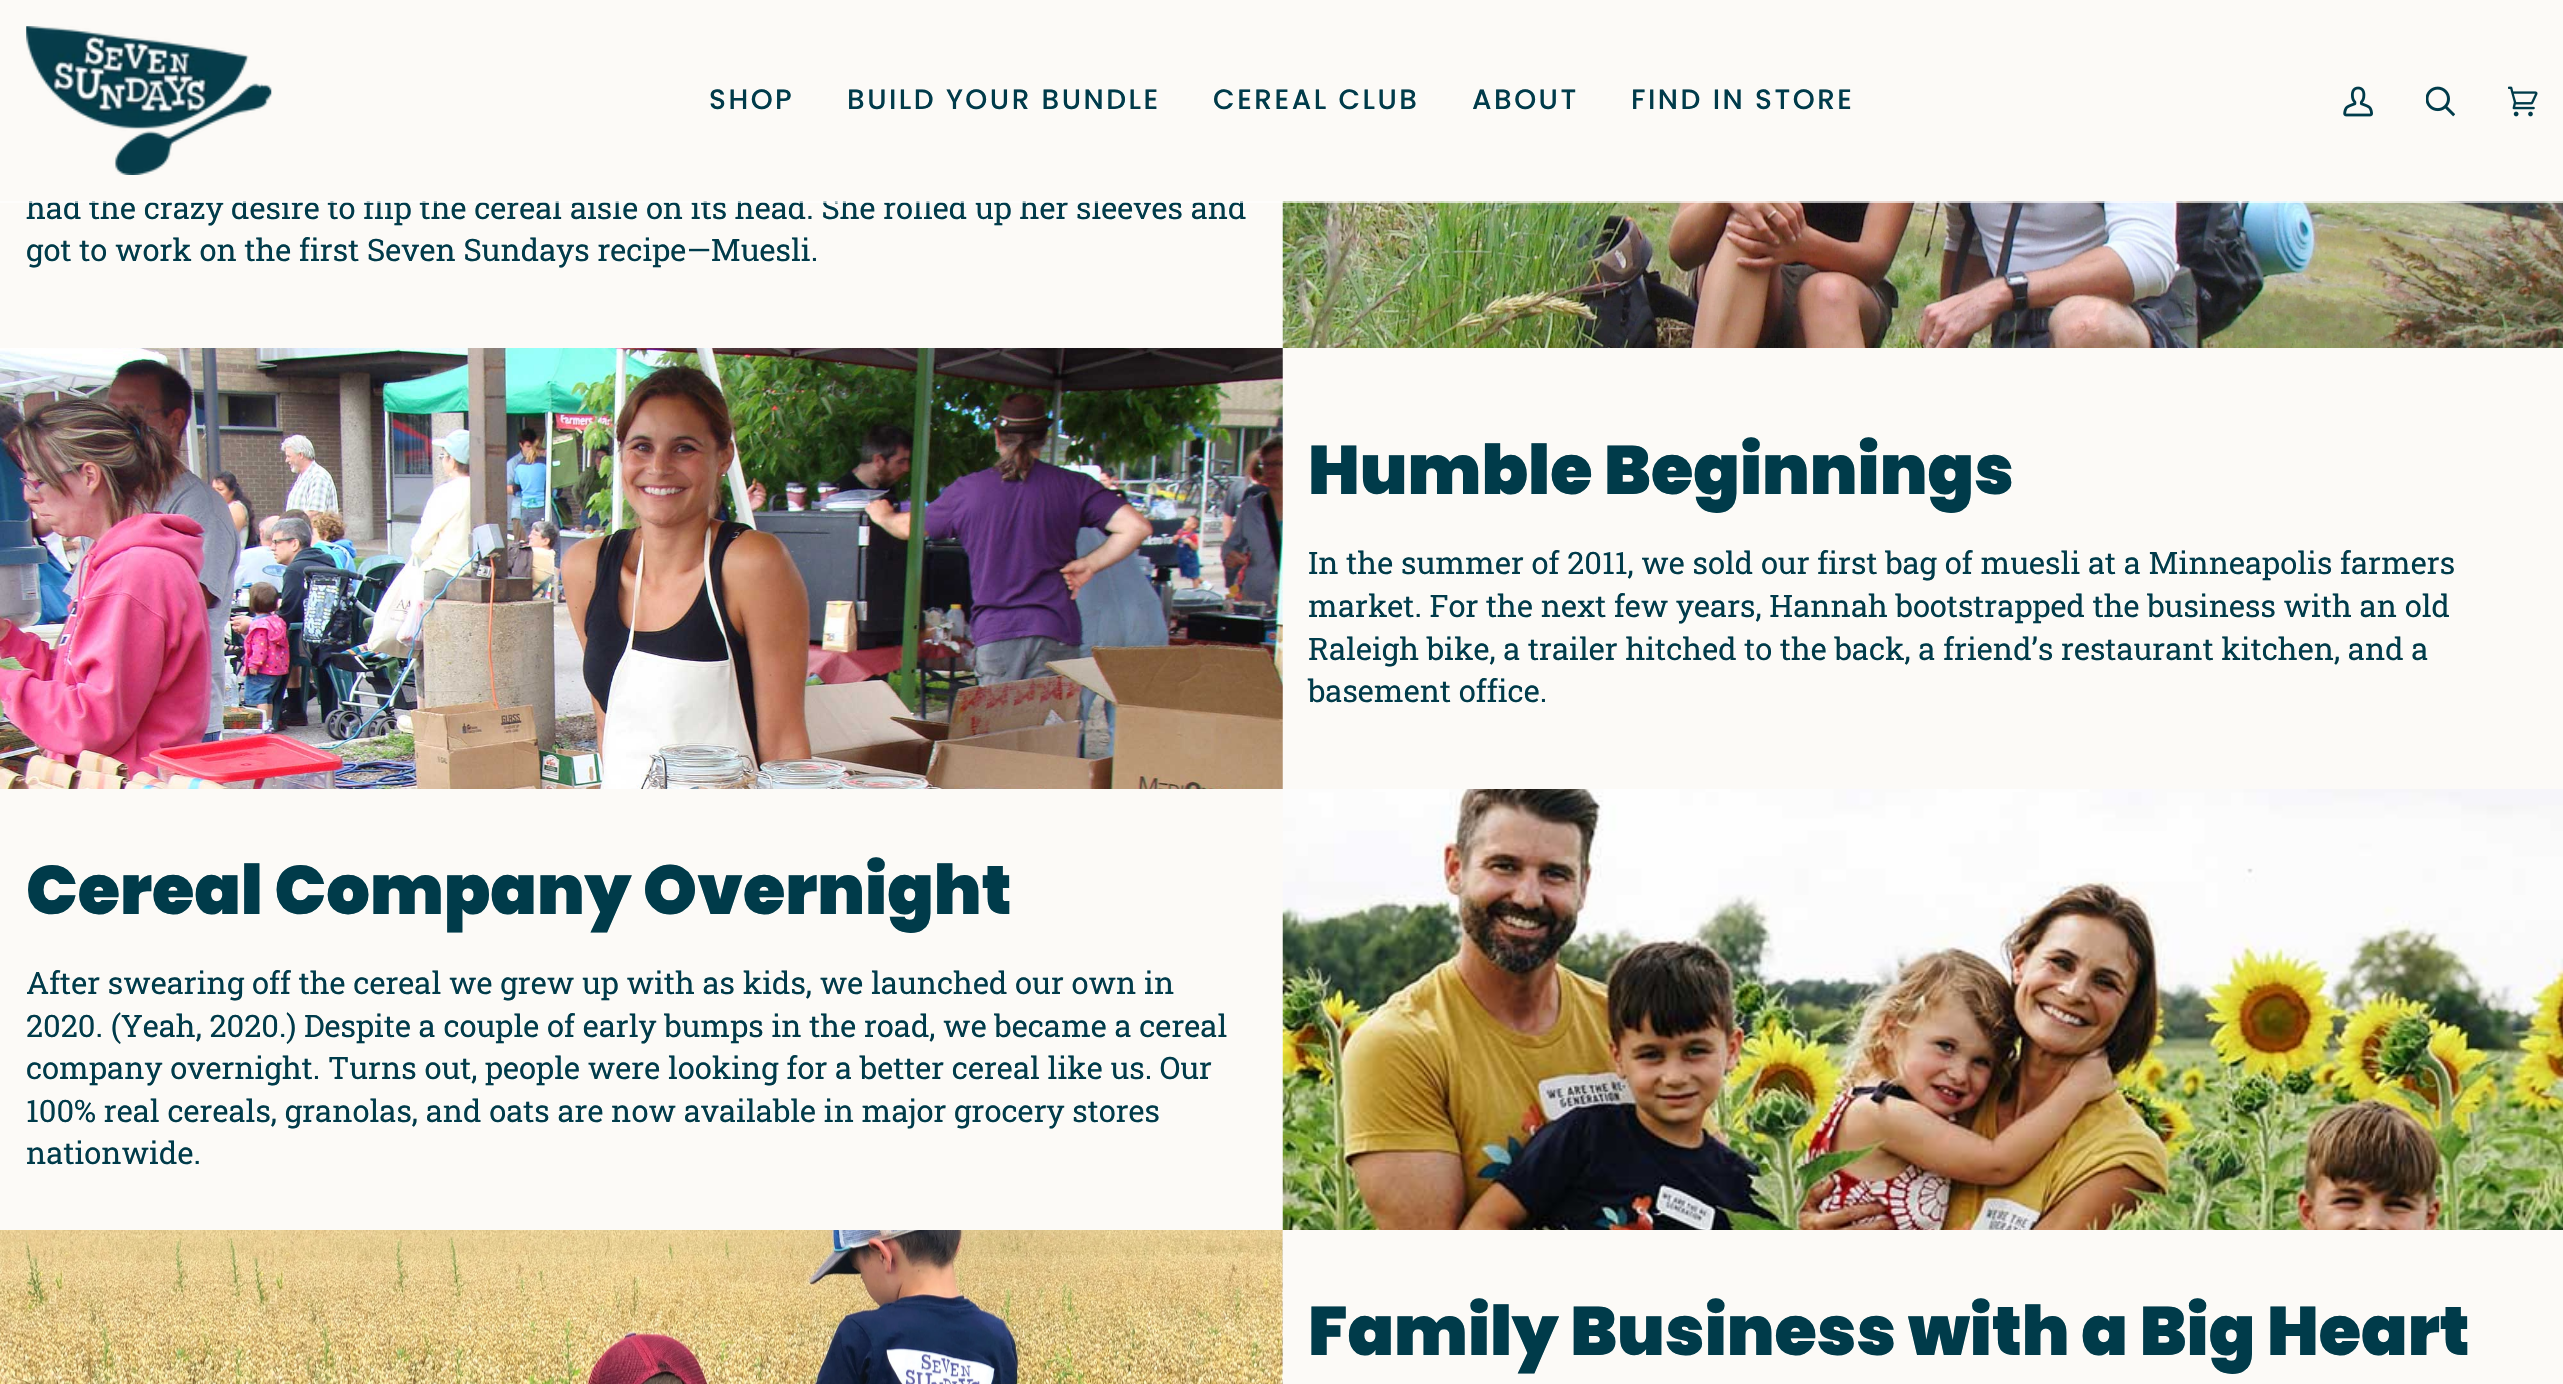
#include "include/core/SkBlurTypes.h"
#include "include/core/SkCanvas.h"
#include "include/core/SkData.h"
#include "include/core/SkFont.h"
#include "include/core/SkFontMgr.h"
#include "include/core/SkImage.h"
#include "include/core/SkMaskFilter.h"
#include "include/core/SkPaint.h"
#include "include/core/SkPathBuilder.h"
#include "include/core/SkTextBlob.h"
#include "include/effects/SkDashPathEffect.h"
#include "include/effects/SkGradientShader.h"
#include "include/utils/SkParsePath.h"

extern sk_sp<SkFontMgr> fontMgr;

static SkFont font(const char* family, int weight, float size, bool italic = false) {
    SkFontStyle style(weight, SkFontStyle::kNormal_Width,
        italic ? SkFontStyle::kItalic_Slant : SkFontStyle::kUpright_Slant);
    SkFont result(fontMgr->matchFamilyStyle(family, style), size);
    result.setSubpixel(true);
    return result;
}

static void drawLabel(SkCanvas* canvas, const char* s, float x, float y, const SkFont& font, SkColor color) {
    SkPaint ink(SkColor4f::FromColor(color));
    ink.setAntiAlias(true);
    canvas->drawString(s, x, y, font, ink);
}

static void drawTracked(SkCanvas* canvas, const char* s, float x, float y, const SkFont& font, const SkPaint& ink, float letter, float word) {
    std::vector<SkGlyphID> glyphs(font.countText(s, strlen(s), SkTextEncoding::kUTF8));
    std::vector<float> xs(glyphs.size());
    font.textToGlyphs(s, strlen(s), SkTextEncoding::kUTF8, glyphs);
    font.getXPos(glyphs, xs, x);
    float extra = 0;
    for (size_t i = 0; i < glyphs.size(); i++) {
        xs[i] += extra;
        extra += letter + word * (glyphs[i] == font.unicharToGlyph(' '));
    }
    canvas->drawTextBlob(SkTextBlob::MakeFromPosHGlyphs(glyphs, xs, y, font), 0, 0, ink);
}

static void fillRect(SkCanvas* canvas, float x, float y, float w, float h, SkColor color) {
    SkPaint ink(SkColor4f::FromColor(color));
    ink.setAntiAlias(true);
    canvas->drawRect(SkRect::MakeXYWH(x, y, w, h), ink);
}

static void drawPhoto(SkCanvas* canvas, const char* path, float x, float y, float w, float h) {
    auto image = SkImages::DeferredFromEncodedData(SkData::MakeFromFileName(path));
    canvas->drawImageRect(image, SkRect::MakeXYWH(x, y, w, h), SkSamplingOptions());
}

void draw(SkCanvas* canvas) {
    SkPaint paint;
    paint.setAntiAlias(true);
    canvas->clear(0xFFFFFFFF);
    fillRect(canvas, 0, 201, 1283, 147, 0xFFFCFAF7);
    SkFont font1 = font("Roboto Slab", 400, 30.95f);
    drawLabel(canvas, "had the crazy desire to flip the cereal aisle on its head. She rolled up her sleeves and", 26, 219, font1, 0xFF003B4A);
    drawPhoto(canvas, "assets/img5.png", 1282, 201, 1281, 147);
    fillRect(canvas, 0, 201, 2563, 2, 0xA6FFFFFF);
    fillRect(canvas, 0, 0, 2563, 201, 0xFFFCFAF7);
    drawPhoto(canvas, "assets/img1.png", 26, 26, 246, 149);
    SkFont font2 = font("Poppins", 500, 28);
    paint.setColor(0xFF003B4A);
    drawTracked(canvas, "SHOP", 709, 109, font2, paint, 2.5f, 0);
    drawTracked(canvas, "BUILD YOUR BUNDLE", 847, 109, font2, paint, 2.5f, 0);
    drawTracked(canvas, "CEREAL CLUB", 1213, 109, font2, paint, 2.5f, 0);
    drawTracked(canvas, "ABOUT", 1472, 109, font2, paint, 2.5f, 0);
    drawTracked(canvas, "FIND IN STORE", 1631, 109, font2, paint, 2.5f, 0);
    fillRect(canvas, 1472, 205, 107, 4, 0x1A003B4A);
    drawPhoto(canvas, "assets/img2.png", 2343, 86, 30, 31);
    drawPhoto(canvas, "assets/img3.png", 2426, 86, 29, 31);
    drawPhoto(canvas, "assets/img4.png", 2508, 86, 30, 31);
    drawLabel(canvas, "got to work on the first Seven Sundays recipe—Muesli.", 26, 261, font1, 0xFF003B4A);
    drawPhoto(canvas, "assets/img6.png", 0, 348, 1283, 441);
    fillRect(canvas, 1283, 348, 1280, 441, 0xFFFCFAF7);
    SkFont font3 = font("Poppins", 900, 68.6f);
    drawLabel(canvas, "Humble Beginnings", 1308, 494, font3, 0xFF003B4A);
    drawLabel(canvas, "In the summer of 2011, we sold our first bag of muesli at a Minneapolis farmers", 1308, 574, font1, 0xFF003B4A);
    drawLabel(canvas, "market. For the next few years, Hannah bootstrapped the business with an old", 1308, 617, font1, 0xFF003B4A);
    drawLabel(canvas, "Raleigh bike, a trailer hitched to the back, a friend’s restaurant kitchen, and a", 1308, 660, font1, 0xFF003B4A);
    drawLabel(canvas, "basement office.", 1308, 702, font1, 0xFF003B4A);
    fillRect(canvas, 0, 789, 1283, 441, 0xFFFCFAF7);
    drawLabel(canvas, "Cereal Company Overnight", 26, 914, font3, 0xFF003B4A);
    drawLabel(canvas, "After swearing off the cereal we grew up with as kids, we launched our own in", 26, 994, font1, 0xFF003B4A);
    drawLabel(canvas, "2020. (Yeah, 2020.) Despite a couple of early bumps in the road, we became a cereal", 26, 1037, font1, 0xFF003B4A);
    drawLabel(canvas, "company overnight. Turns out, people were looking for a better cereal like us. Our", 26, 1079, font1, 0xFF003B4A);
    drawLabel(canvas, "100% real cereals, granolas, and oats are now available in major grocery stores", 26, 1122, font1, 0xFF003B4A);
    drawLabel(canvas, "nationwide.", 26, 1164, font1, 0xFF003B4A);
    drawPhoto(canvas, "assets/img7.png", 1282, 789, 1281, 441);
    drawPhoto(canvas, "assets/img8.png", 0, 1230, 1283, 154);
    fillRect(canvas, 1283, 1230, 1280, 154, 0xFFFCFAF7);
    drawLabel(canvas, "Family Business with a Big Heart", 1308, 1355, font3, 0xFF003B4A);
}
